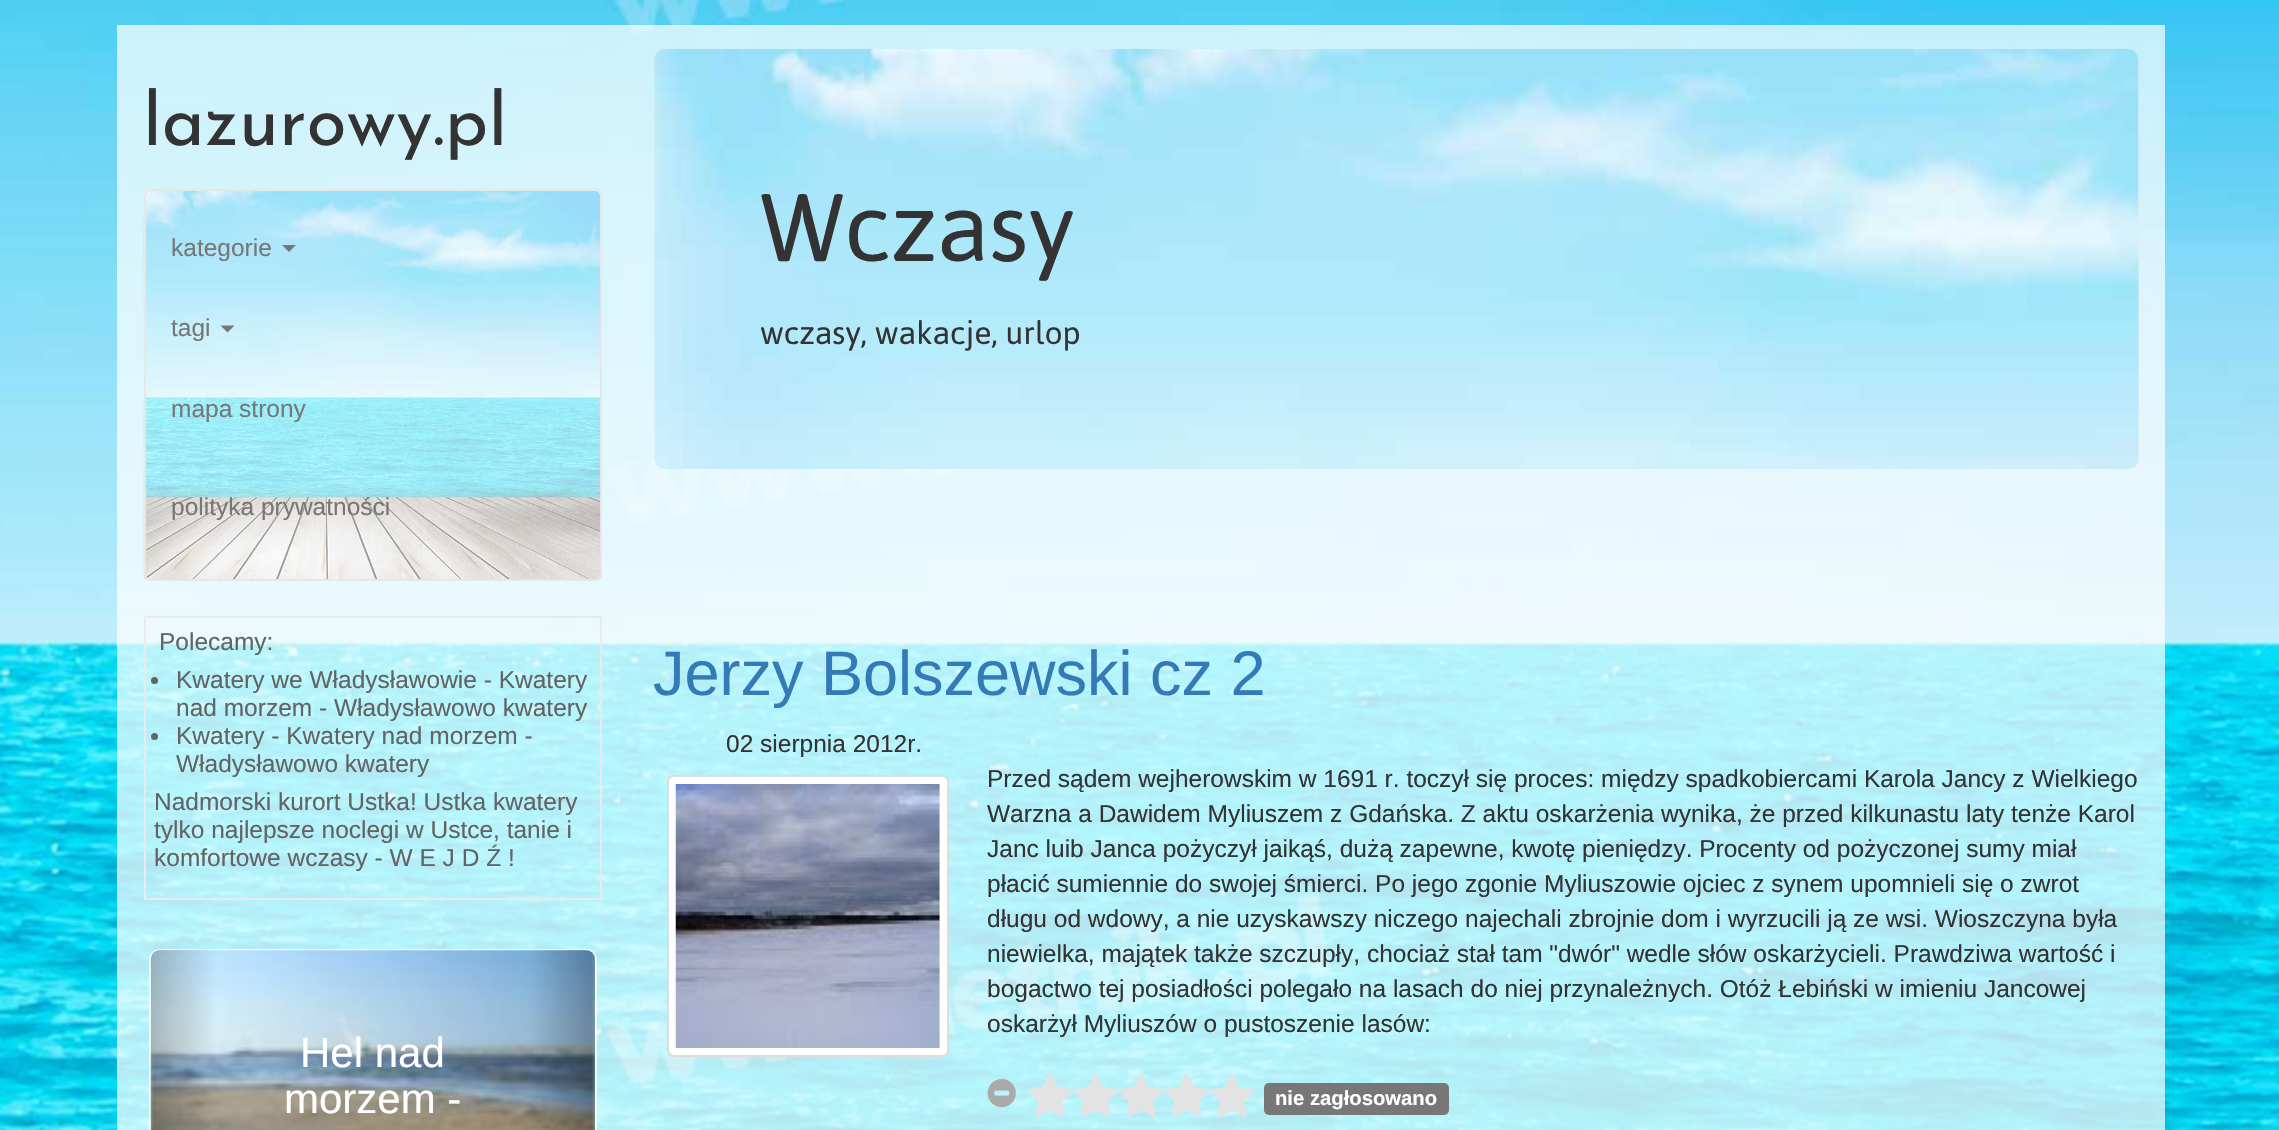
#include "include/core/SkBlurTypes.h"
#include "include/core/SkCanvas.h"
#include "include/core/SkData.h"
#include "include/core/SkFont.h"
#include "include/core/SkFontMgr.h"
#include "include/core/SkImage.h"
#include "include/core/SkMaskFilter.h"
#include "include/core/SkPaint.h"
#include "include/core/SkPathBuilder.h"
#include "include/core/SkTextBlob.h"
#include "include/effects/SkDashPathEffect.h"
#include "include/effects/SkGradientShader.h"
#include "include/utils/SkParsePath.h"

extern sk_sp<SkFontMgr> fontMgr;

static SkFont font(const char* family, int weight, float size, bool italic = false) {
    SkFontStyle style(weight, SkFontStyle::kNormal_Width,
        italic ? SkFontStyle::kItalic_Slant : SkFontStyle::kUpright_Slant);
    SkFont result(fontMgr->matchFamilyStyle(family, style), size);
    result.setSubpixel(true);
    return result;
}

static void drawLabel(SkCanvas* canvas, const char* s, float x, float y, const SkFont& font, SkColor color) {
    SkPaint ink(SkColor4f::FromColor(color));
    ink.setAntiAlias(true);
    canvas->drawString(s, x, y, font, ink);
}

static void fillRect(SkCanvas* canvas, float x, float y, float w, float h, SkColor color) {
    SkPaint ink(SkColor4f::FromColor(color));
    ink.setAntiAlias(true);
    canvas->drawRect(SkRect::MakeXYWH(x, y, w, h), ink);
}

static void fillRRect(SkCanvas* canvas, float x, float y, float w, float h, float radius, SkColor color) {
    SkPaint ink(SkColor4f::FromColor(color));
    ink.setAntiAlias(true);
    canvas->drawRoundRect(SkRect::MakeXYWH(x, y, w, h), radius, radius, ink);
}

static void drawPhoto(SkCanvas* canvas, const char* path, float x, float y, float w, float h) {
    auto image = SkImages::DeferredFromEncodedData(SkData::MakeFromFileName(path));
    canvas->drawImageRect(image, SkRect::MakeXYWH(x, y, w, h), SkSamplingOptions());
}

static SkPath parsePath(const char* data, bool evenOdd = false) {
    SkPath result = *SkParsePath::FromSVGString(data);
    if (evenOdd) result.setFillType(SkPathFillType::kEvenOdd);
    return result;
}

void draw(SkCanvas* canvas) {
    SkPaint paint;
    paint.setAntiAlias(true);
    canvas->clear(0xFFFFFFFF);
    drawPhoto(canvas, "assets/img1.png", 0, 0, 2279, 1130);
    fillRect(canvas, 117, 25, 2048, 1105, 0xB3FFFFFF);
    SkFont font1 = font("Josefin Sans", 100, 73.5f);
    drawLabel(canvas, "lazurowy.pl", 143, 145, font1, 0xFF333333);
    drawPhoto(canvas, "assets/img2.png", 143, 189, 459, 392);
    paint.setStroke(true);
    paint.setStrokeWidth(2);
    paint.setColor(0xFFE7E7E7);
    canvas->drawRoundRect(SkRect::MakeXYWH(145, 190, 456, 390), 6, 6, paint);
    SkFont font2 = font("Liberation Sans", 400, 24.5f);
    drawLabel(canvas, "kategorie", 171, 256, font2, 0xFF777777);
    paint.setStroke(false);
    paint.setColor(0xFF777777);
    canvas->drawPath(parsePath("M282 245H296L289 252Z"), paint);
    drawLabel(canvas, "tagi", 171, 336, font2, 0xFF777777);
    canvas->drawPath(parsePath("M220.5 325.5H234.5L227.5 332.5Z"), paint);
    drawLabel(canvas, "mapa strony", 171, 417, font2, 0xFF777777);
    drawLabel(canvas, "polityka prywatności", 171, 515, font2, 0xFF777777);
    paint.setStroke(true);
    paint.setColor(0xFFEAEAEA);
    canvas->drawRect(SkRect::MakeXYWH(145, 617, 456, 282), paint);
    drawLabel(canvas, "Polecamy:", 159, 650, font2, 0xFF636363);
    paint.setStroke(false);
    paint.setColor(0xFF636363);
    canvas->drawCircle(154.5f, 680.5f, 3.5f, paint);
    drawLabel(canvas, "Kwatery we Władysławowie - Kwatery", 176, 688, font2, 0xFF636363);
    drawLabel(canvas, "nad morzem - Władysławowo kwatery", 176, 716, font2, 0xFF636363);
    canvas->drawCircle(154.5f, 736.5f, 3.5f, paint);
    drawLabel(canvas, "Kwatery - Kwatery nad morzem -", 176, 744, font2, 0xFF636363);
    drawLabel(canvas, "Władysławowo kwatery", 176, 772, font2, 0xFF636363);
    drawLabel(canvas, "Nadmorski kurort Ustka! Ustka kwatery", 154, 810, font2, 0xFF636363);
    drawLabel(canvas, "tylko najlepsze noclegi w Ustce, tanie i", 154, 838, font2, 0xFF636363);
    drawLabel(canvas, "komfortowe wczasy - W E J D Ź !", 154, 866, font2, 0xFF636363);
    paint.setStroke(true);
    paint.setColor(0xCCFFFFFF);
    canvas->drawRoundRect(SkRect::MakeXYWH(150, 950, 446, 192), 10, 10, paint);
    drawPhoto(canvas, "assets/img3.png", 150, 950, 445, 180);
    paint.setStroke(false);
    {
        const SkColor colors[] = {0x40000000, 0x00000000};
        const float stops[] = {0, 1};
        const SkPoint ends[] = {{151, 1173}, {217, 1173}};
        paint.setShader(SkGradientShader::MakeLinear(ends, colors, stops, 2, SkTileMode::kClamp));
        paint.setAlpha(255);
    }
    canvas->drawPath(parsePath("M160 950H217V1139H160C155 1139 151 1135 151 1130V959C151 954 155 950 160 950Z"), paint);
    SkFont font3 = font("Liberation Sans", 400, 42);
    drawLabel(canvas, "Hel nad", 300, 1067, font3, 0xFFFFFFFF);
    drawLabel(canvas, "morzem -", 284, 1113, font3, 0xFFFFFFFF);
    {
        const SkColor colors[] = {0x00000000, 0x40000000};
        const float stops[] = {0, 1};
        const SkPoint ends[] = {{529, 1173}, {595, 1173}};
        paint.setShader(SkGradientShader::MakeLinear(ends, colors, stops, 2, SkTileMode::kClamp));
        paint.setAlpha(255);
    }
    canvas->drawPath(parsePath("M529 950H586C591 950 595 954 595 959V1130C595 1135 591 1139 586 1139H529Z"), paint);
    fillRRect(canvas, 655, 49, 1484, 420, 11, 0xFFEEEEEE);
    drawPhoto(canvas, "assets/img4.png", 654, 49, 1485, 420);
    SkFont font4 = font("Jaldi", 400, 110);
    drawLabel(canvas, "Wczasy", 760, 261, font4, 0xFF333333);
    SkFont font5 = font("Jaldi", 400, 36.75f);
    drawLabel(canvas, "wczasy, wakacje, urlop", 760, 344, font5, 0xFF333333);
    SkFont font6 = font("Liberation Sans", 400, 63);
    drawLabel(canvas, "Jerzy Bolszewski cz 2", 653, 695, font6, 0xFF337AB7);
    drawLabel(canvas, "02 sierpnia 2012r.", 726, 752, font2, 0xFF333333);
    paint.setShader(nullptr);
    paint.setColor(0xFFFFFFFF);
    canvas->drawRoundRect(SkRect::MakeXYWH(668, 776, 280, 280), 6, 6, paint);
    paint.setStroke(true);
    paint.setColor(0xFFDDDDDD);
    canvas->drawRoundRect(SkRect::MakeXYWH(668, 776, 280, 280), 6, 6, paint);
    drawPhoto(canvas, "assets/img5.png", 675, 784, 265, 265);
    drawLabel(canvas, "Przed sądem wejherowskim w 1691 r. toczył się proces: między spadkobiercami Karola Jancy z Wielkiego", 987, 787, font2, 0xFF333333);
    drawLabel(canvas, "Warzna a Dawidem Myliuszem z Gdańska. Z aktu oskarżenia wynika, że przed kilkunastu laty tenże Karol", 987, 822, font2, 0xFF333333);
    drawLabel(canvas, "Janc luib Janca pożyczył jaikąś, dużą zapewne, kwotę pieniędzy. Procenty od pożyczonej sumy miał", 987, 857, font2, 0xFF333333);
    drawLabel(canvas, "płacić sumiennie do swojej śmierci. Po jego zgonie Myliuszowie ojciec z synem upomnieli się o zwrot", 987, 892, font2, 0xFF333333);
    drawLabel(canvas, "długu od wdowy, a nie uzyskawszy niczego najechali zbrojnie dom i wyrzucili ją ze wsi. Wioszczyna była", 987, 927, font2, 0xFF333333);
    drawLabel(canvas, "niewielka, majątek także szczupły, chociaż stał tam \"dwór\" wedle słów oskarżycieli. Prawdziwa wartość i", 987, 962, font2, 0xFF333333);
    drawLabel(canvas, "bogactwo tej posiadłości polegało na lasach do niej przynależnych. Otóż Łebiński w imieniu Jancowej", 987, 997, font2, 0xFF333333);
    drawLabel(canvas, "oskarżył Myliuszów o pustoszenie lasów:", 987, 1032, font2, 0xFF333333);
    drawPhoto(canvas, "assets/img6.png", 987, 1078, 29, 30);
    drawPhoto(canvas, "assets/img7.png", 1027, 1073, 228, 44);
    fillRRect(canvas, 1264, 1083, 185, 32, 5, 0xFF777777);
    SkFont font7 = font("Liberation Sans", 700, 20.25f);
    drawLabel(canvas, "nie zagłosowano", 1275, 1105, font7, 0xFFFFFFFF);
}
